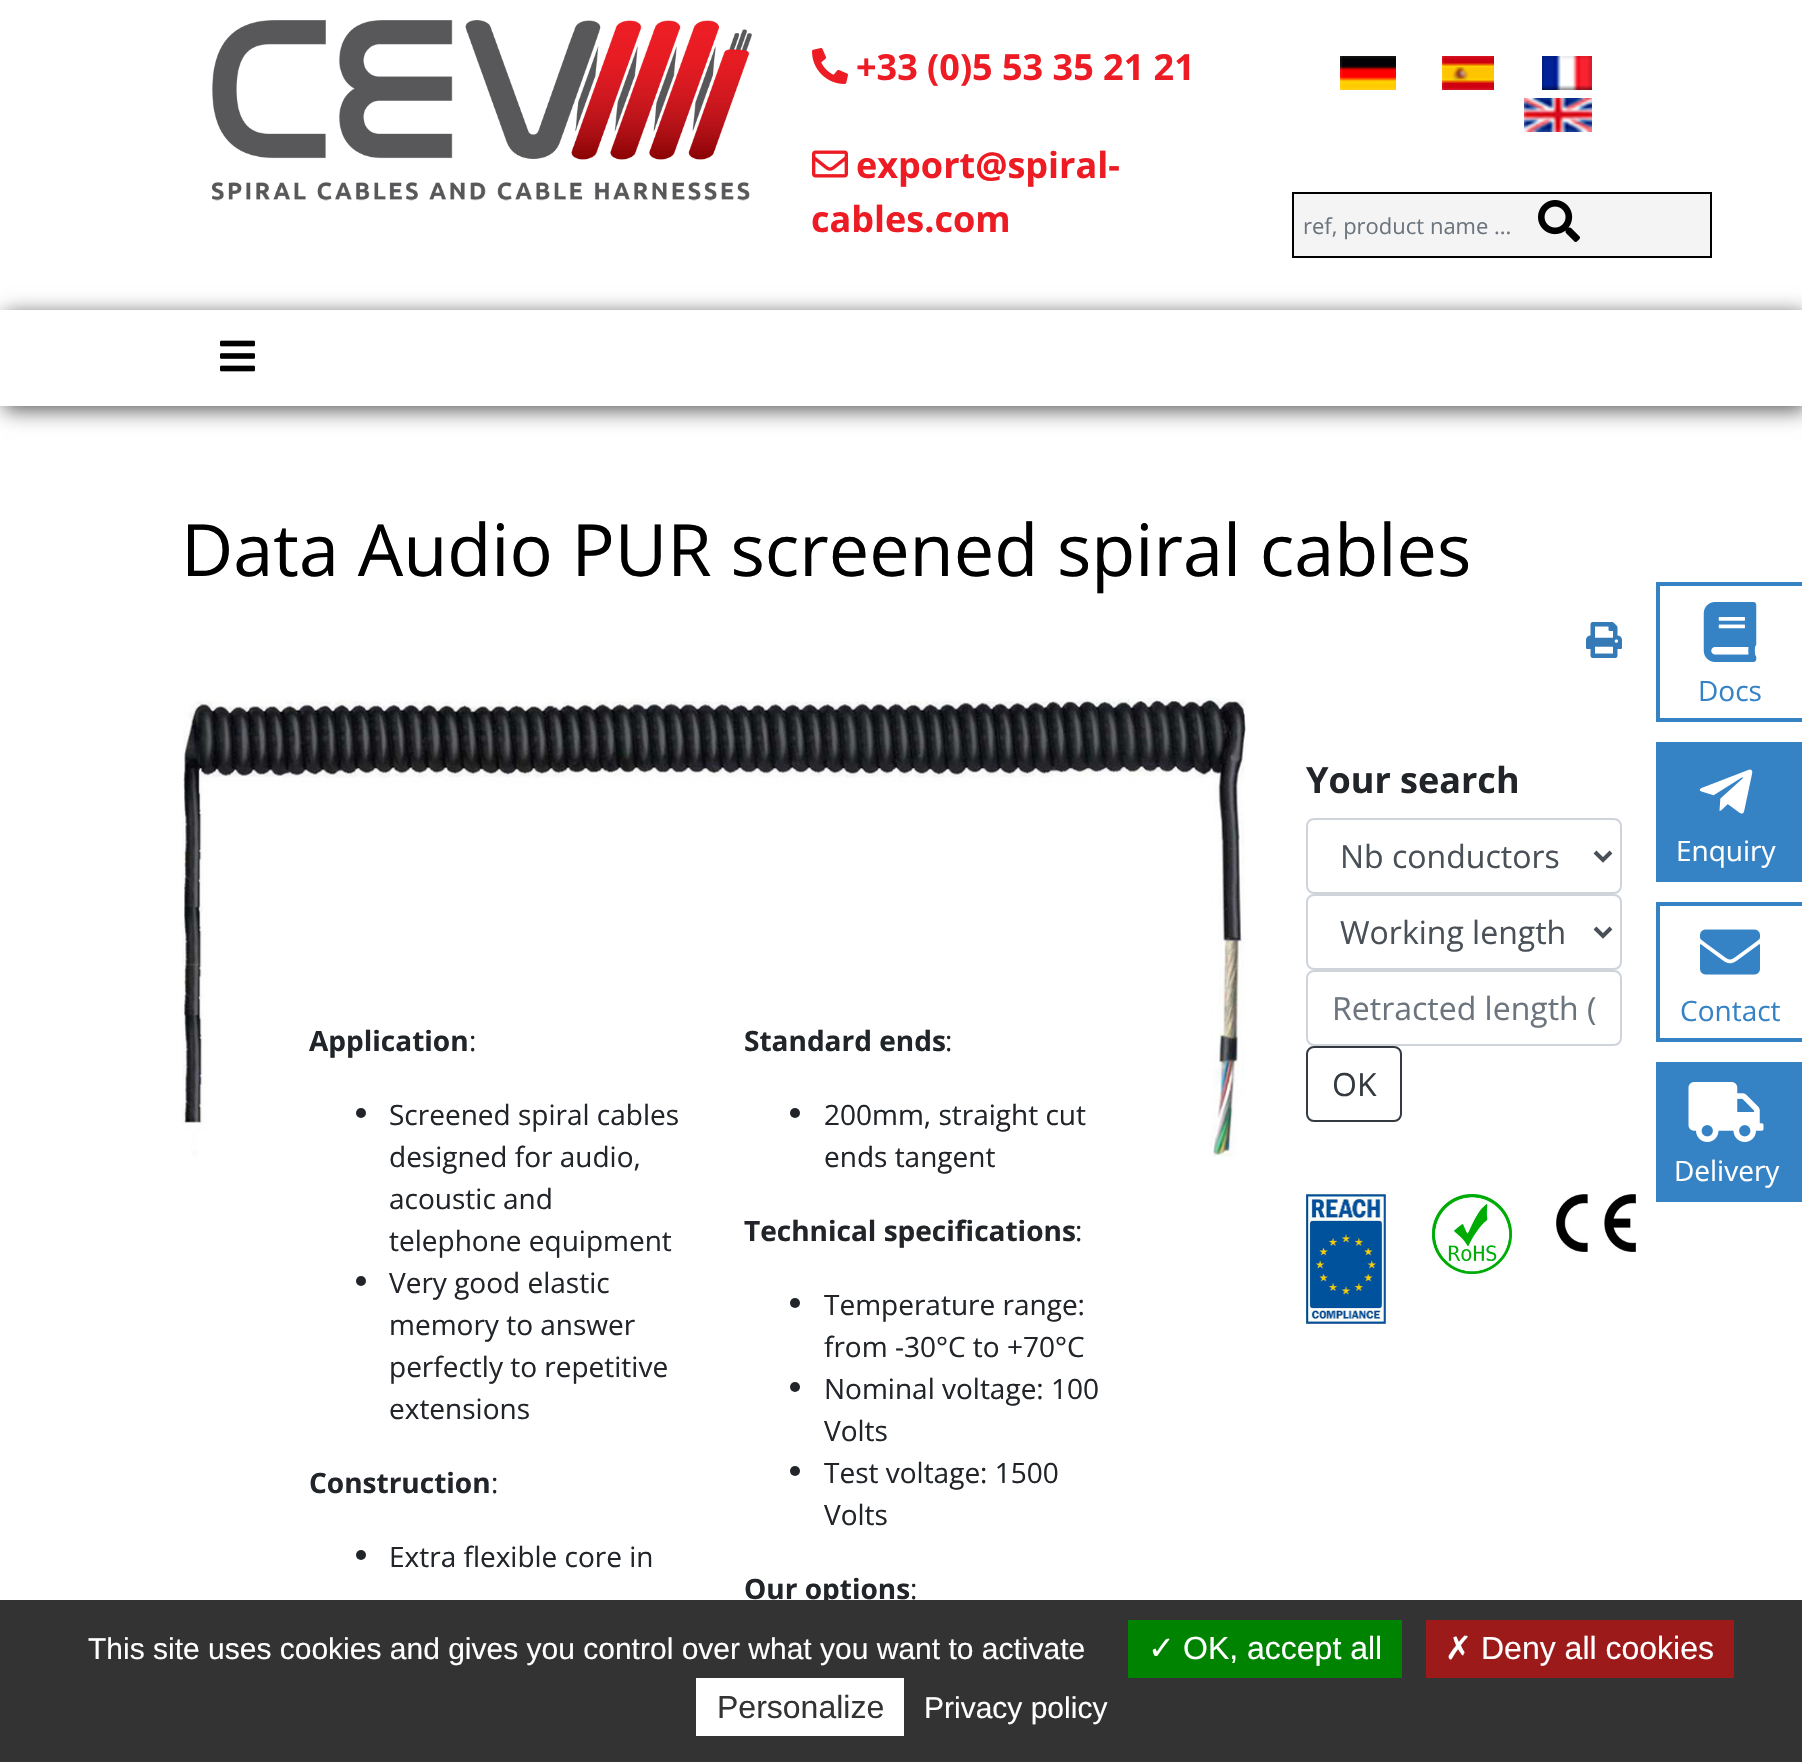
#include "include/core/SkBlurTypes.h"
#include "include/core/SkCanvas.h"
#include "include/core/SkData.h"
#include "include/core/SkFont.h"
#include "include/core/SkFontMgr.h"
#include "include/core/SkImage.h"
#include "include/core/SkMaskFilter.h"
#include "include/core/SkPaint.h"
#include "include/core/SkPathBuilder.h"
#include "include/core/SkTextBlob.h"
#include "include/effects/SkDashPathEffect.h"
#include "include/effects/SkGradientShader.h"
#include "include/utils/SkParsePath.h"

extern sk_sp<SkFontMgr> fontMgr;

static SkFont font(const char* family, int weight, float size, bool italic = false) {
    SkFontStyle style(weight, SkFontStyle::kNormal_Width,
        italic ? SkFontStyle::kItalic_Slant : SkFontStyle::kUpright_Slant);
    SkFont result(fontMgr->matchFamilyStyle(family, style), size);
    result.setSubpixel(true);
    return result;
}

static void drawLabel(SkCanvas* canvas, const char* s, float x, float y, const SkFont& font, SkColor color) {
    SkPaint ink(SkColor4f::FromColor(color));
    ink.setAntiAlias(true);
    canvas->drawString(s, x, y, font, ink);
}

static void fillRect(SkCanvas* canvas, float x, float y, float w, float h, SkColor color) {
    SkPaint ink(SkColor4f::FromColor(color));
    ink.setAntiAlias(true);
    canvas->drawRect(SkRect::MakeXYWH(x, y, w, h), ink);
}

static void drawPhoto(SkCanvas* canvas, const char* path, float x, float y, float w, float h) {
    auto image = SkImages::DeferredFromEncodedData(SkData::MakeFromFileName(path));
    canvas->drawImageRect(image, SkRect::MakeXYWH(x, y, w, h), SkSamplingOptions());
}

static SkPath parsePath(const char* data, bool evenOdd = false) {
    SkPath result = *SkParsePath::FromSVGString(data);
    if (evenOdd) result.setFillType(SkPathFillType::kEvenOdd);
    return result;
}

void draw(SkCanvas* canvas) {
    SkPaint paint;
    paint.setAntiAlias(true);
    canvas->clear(0xFFFFFFFF);
    drawPhoto(canvas, "assets/img1.png", 212, 20, 540, 181);
    drawPhoto(canvas, "assets/img2.png", 812, 48, 36, 36);
    SkFont font1 = font("Open Sans", 700, 36);
    drawLabel(canvas, "+33 (0)5 53 35 21 21", 856, 80, font1, 0xFFED1C24);
    drawPhoto(canvas, "assets/img3.png", 812, 150, 36, 28);
    drawLabel(canvas, "export@spiral-", 856, 178, font1, 0xFFED1C24);
    drawLabel(canvas, "cables.com", 811, 232, font1, 0xFFED1C24);
    drawPhoto(canvas, "assets/img4.png", 1340, 56, 56, 34);
    drawPhoto(canvas, "assets/img5.png", 1442, 56, 52, 34);
    drawPhoto(canvas, "assets/img6.png", 1542, 56, 50, 34);
    drawPhoto(canvas, "assets/img7.png", 1524, 98, 68, 34);
    paint.setColor(0xFFF4F4F4);
    canvas->drawRect(SkRect::MakeXYWH(1293, 193, 418, 64), paint);
    paint.setStroke(true);
    paint.setStrokeWidth(2);
    paint.setColor(0xFF000000);
    canvas->drawRect(SkRect::MakeXYWH(1293, 193, 418, 64), paint);
    SkFont font2 = font("Open Sans", 400, 22);
    drawLabel(canvas, "ref, product name ...", 1303, 234, font2, 0xFF6C757D);
    drawPhoto(canvas, "assets/img8.png", 1538, 200, 42, 42);
    canvas->save();
    canvas->clipPath(parsePath("M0 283H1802V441H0ZM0 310H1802V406H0Z", true), true);
    paint.setStroke(false);
    paint.setColor(0xFF58585A);
    paint.setMaskFilter(SkMaskFilter::MakeBlur(kNormal_SkBlurStyle, 10));
    canvas->drawRect(SkRect::MakeXYWH(4, 314, 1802, 96), paint);
    paint.setMaskFilter(nullptr);
    canvas->restore();
    drawPhoto(canvas, "assets/img9.png", 220, 340, 35, 32);
    SkFont font3 = font("Open Sans", 400, 72);
    drawLabel(canvas, "Data Audio PUR screened spiral cables", 181, 576, font3, 0xFF000000);
    drawPhoto(canvas, "assets/img10.png", 1586, 622, 36, 36);
    drawLabel(canvas, "Your search", 1306, 793, font1, 0xFF212529);
    paint.setStroke(true);
    paint.setColor(0xFFCED4DA);
    canvas->drawRoundRect(SkRect::MakeXYWH(1307, 819, 314, 74), 7, 7, paint);
    paint.setStrokeWidth(4);
    paint.setColor(0xFF495057);
    canvas->drawPath(parsePath("M1595 852L1603 860L1611 852"), paint);
    SkFont font4 = font("Open Sans", 400, 32);
    drawLabel(canvas, "Nb conductors", 1340, 868, font4, 0xFF495057);
    paint.setStrokeWidth(2);
    paint.setColor(0xFFCED4DA);
    canvas->drawRoundRect(SkRect::MakeXYWH(1307, 895, 314, 74), 7, 7, paint);
    paint.setStrokeWidth(4);
    paint.setColor(0xFF495057);
    canvas->drawPath(parsePath("M1595 928L1603 936L1611 928"), paint);
    drawLabel(canvas, "Working length", 1340, 944, font4, 0xFF495057);
    paint.setStrokeWidth(2);
    paint.setColor(0xFFCED4DA);
    canvas->drawRoundRect(SkRect::MakeXYWH(1307, 971, 314, 74), 7, 7, paint);
    drawLabel(canvas, "Retracted length (", 1332, 1020, font4, 0xFF6C757D);
    paint.setColor(0xFF343A40);
    canvas->drawRoundRect(SkRect::MakeXYWH(1307, 1047, 94, 74), 7, 7, paint);
    drawLabel(canvas, "OK", 1332, 1096, font4, 0xFF343A40);
    drawPhoto(canvas, "assets/img11.png", 1306, 1194, 80, 130);
    drawPhoto(canvas, "assets/img12.png", 1432, 1194, 80, 80);
    drawPhoto(canvas, "assets/img13.png", 1556, 1194, 80, 58);
    drawPhoto(canvas, "assets/img14.png", 182, 698, 1064, 459);
    SkFont font5 = font("Open Sans", 700, 28);
    drawLabel(canvas, "Application", 309, 1051, font5, 0xFF212529);
    SkFont font6 = font("Open Sans", 400, 28);
    drawLabel(canvas, ":", 469, 1051, font6, 0xFF212529);
    paint.setStroke(false);
    paint.setColor(0xFF212529);
    canvas->drawCircle(361, 1113, 5, paint);
    drawLabel(canvas, "Screened spiral cables", 389, 1125, font6, 0xFF212529);
    drawLabel(canvas, "designed for audio,", 389, 1167, font6, 0xFF212529);
    drawLabel(canvas, "acoustic and", 389, 1209, font6, 0xFF212529);
    drawLabel(canvas, "telephone equipment", 389, 1251, font6, 0xFF212529);
    canvas->drawCircle(361, 1281, 5, paint);
    drawLabel(canvas, "Very good elastic", 389, 1293, font6, 0xFF212529);
    drawLabel(canvas, "memory to answer", 389, 1335, font6, 0xFF212529);
    drawLabel(canvas, "perfectly to repetitive", 389, 1377, font6, 0xFF212529);
    drawLabel(canvas, "extensions", 389, 1419, font6, 0xFF212529);
    drawLabel(canvas, "Construction", 309, 1493, font5, 0xFF212529);
    drawLabel(canvas, ":", 491, 1493, font6, 0xFF212529);
    canvas->drawCircle(361, 1555, 5, paint);
    drawLabel(canvas, "Extra flexible core in", 389, 1567, font6, 0xFF212529);
    drawLabel(canvas, "Standard ends", 744, 1051, font5, 0xFF212529);
    drawLabel(canvas, ":", 945, 1051, font6, 0xFF212529);
    canvas->drawCircle(795, 1113, 5, paint);
    drawLabel(canvas, "200mm, straight cut", 824, 1125, font6, 0xFF212529);
    drawLabel(canvas, "ends tangent", 824, 1167, font6, 0xFF212529);
    drawLabel(canvas, "Technical specifications", 744, 1241, font5, 0xFF212529);
    drawLabel(canvas, ":", 1075, 1241, font6, 0xFF212529);
    canvas->drawCircle(795, 1303, 5, paint);
    drawLabel(canvas, "Temperature range:", 824, 1315, font6, 0xFF212529);
    drawLabel(canvas, "from -30°C to +70°C", 824, 1357, font6, 0xFF212529);
    canvas->drawCircle(795, 1387, 5, paint);
    drawLabel(canvas, "Nominal voltage: 100", 824, 1399, font6, 0xFF212529);
    drawLabel(canvas, "Volts", 824, 1441, font6, 0xFF212529);
    canvas->drawCircle(795, 1471, 5, paint);
    drawLabel(canvas, "Test voltage: 1500", 824, 1483, font6, 0xFF212529);
    drawLabel(canvas, "Volts", 824, 1525, font6, 0xFF212529);
    drawLabel(canvas, "Our options", 744, 1599, font5, 0xFF212529);
    drawLabel(canvas, ":", 910, 1599, font6, 0xFF212529);
    fillRect(canvas, 1656, 582, 146, 4, 0xFF3582C5);
    fillRect(canvas, 1656, 718, 146, 4, 0xFF3582C5);
    fillRect(canvas, 1656, 582, 4, 140, 0xFF3582C5);
    drawPhoto(canvas, "assets/img15.png", 1703, 602, 54, 60);
    drawLabel(canvas, "Docs", 1698, 701, font6, 0xFF3582C5);
    fillRect(canvas, 1656, 742, 146, 140, 0xFF3582C5);
    drawPhoto(canvas, "assets/img16.png", 1699, 769, 54, 45);
    drawLabel(canvas, "Enquiry", 1676, 861, font6, 0xFFFFFFFF);
    fillRect(canvas, 1656, 902, 146, 4, 0xFF3582C5);
    fillRect(canvas, 1656, 1038, 146, 4, 0xFF3582C5);
    fillRect(canvas, 1656, 902, 4, 140, 0xFF3582C5);
    drawPhoto(canvas, "assets/img17.png", 1700, 929, 60, 46);
    drawLabel(canvas, "Contact", 1680, 1021, font6, 0xFF3582C5);
    fillRect(canvas, 1656, 1062, 146, 140, 0xFF3582C5);
    drawPhoto(canvas, "assets/img18.png", 1688, 1082, 76, 60);
    drawLabel(canvas, "Delivery", 1674, 1181, font6, 0xFFFFFFFF);
    fillRect(canvas, 0, 1600, 1802, 162, 0xFF333333);
    SkFont font7 = font("Liberation Sans", 400, 30);
    drawLabel(canvas, "This site uses cookies and gives you control over what you want to activate", 88, 1659, font7, 0xFFFFFFFF);
    fillRect(canvas, 1128, 1620, 274, 58, 0xFF008300);
    SkFont font8 = font("DejaVu Sans", 400, 32);
    drawLabel(canvas, "✓", 1148, 1659, font8, 0xFFFFFFFF);
    SkFont font9 = font("Liberation Sans", 400, 32);
    drawLabel(canvas, "OK, accept all", 1183, 1659, font9, 0xFFFFFFFF);
    fillRect(canvas, 1426, 1620, 308, 58, 0xFF9C1A1A);
    drawLabel(canvas, "✗", 1445, 1659, font8, 0xFFFFFFFF);
    drawLabel(canvas, "Deny all cookies", 1481, 1659, font9, 0xFFFFFFFF);
    fillRect(canvas, 696, 1678, 208, 58, 0xFFFFFFFF);
    drawLabel(canvas, "Personalize", 717, 1718, font9, 0xFF333333);
    drawLabel(canvas, "Privacy policy", 924, 1718, font7, 0xFFFFFFFF);
}
